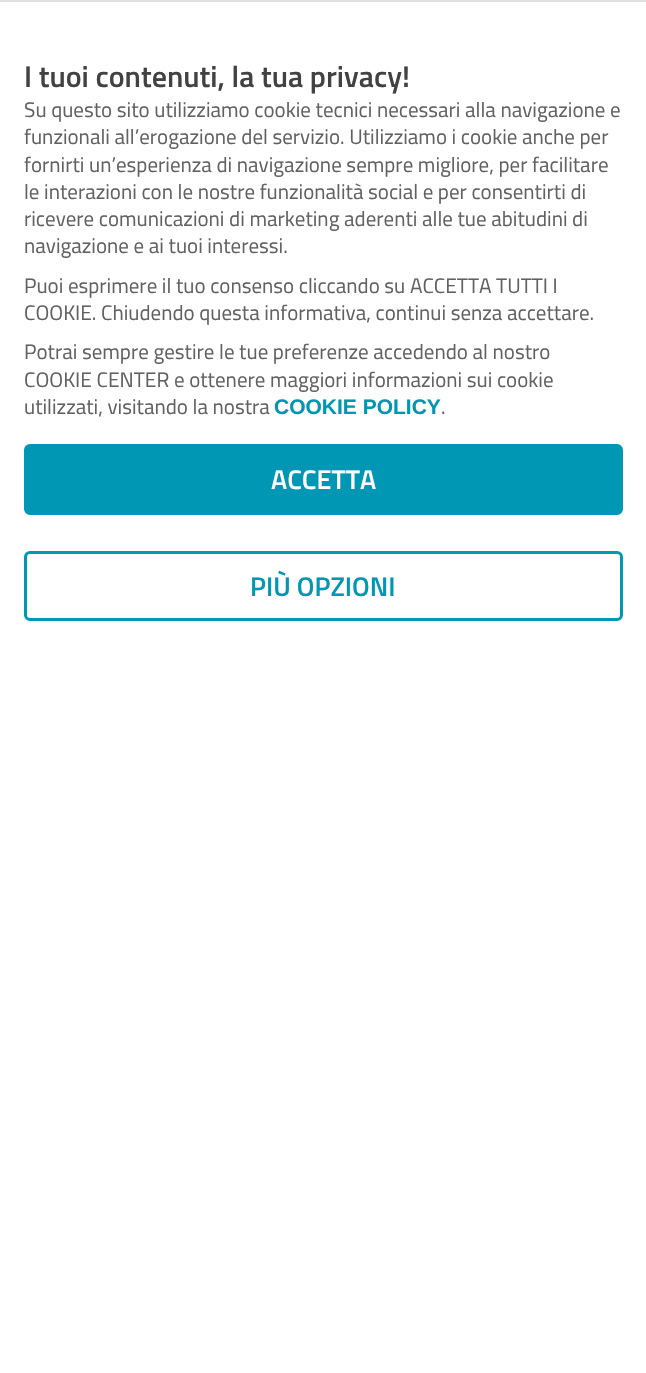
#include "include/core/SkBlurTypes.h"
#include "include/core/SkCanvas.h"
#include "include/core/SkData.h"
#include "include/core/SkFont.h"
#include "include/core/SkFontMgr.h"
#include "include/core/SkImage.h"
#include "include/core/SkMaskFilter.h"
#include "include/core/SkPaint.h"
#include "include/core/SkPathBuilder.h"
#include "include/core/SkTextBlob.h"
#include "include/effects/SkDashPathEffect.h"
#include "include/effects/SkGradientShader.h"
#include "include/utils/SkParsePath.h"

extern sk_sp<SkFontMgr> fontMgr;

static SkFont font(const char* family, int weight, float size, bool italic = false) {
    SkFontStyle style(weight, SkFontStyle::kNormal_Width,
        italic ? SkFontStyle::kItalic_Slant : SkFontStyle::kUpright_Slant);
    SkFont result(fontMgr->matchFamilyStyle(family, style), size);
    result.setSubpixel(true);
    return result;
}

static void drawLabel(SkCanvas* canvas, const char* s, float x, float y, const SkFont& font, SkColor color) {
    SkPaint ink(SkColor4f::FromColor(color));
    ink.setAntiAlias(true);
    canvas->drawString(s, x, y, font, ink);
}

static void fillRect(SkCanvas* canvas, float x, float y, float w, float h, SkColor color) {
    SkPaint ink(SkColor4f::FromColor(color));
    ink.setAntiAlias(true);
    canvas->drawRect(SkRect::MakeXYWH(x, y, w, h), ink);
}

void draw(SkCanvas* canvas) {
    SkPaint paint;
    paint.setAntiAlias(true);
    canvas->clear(0xFFFFFFFF);
    fillRect(canvas, 0, 0, 646, 2, 0xFFE0E0E0);
    SkFont font1 = font("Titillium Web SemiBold", 600, 30);
    drawLabel(canvas, "I tuoi contenuti, la tua privacy!", 24, 87, font1, 0xFF424242);
    SkFont font2 = font("Titillium Web", 400, 21);
    drawLabel(canvas, "Su questo sito utilizziamo cookie tecnici necessari alla navigazione e", 24, 117, font2, 0xFF616161);
    drawLabel(canvas, "funzionali all’erogazione del servizio. Utilizziamo i cookie anche per", 24, 144, font2, 0xFF616161);
    drawLabel(canvas, "fornirti un’esperienza di navigazione sempre migliore, per facilitare", 24, 172, font2, 0xFF616161);
    drawLabel(canvas, "le interazioni con le nostre funzionalità social e per consentirti di", 24, 199, font2, 0xFF616161);
    drawLabel(canvas, "ricevere comunicazioni di marketing aderenti alle tue abitudini di", 24, 226, font2, 0xFF616161);
    drawLabel(canvas, "navigazione e ai tuoi interessi.", 24, 253, font2, 0xFF616161);
    drawLabel(canvas, "Puoi esprimere il tuo consenso cliccando su ACCETTA TUTTI I", 24, 293, font2, 0xFF616161);
    drawLabel(canvas, "COOKIE. Chiudendo questa informativa, continui senza accettare.", 24, 320, font2, 0xFF616161);
    drawLabel(canvas, "Potrai sempre gestire le tue preferenze accedendo al nostro", 24, 359, font2, 0xFF616161);
    drawLabel(canvas, "COOKIE CENTER e ottenere maggiori informazioni sui cookie", 24, 387, font2, 0xFF616161);
    drawLabel(canvas, "utilizzati, visitando la nostra", 24, 414, font2, 0xFF616161);
    SkFont font3 = font("Liberation Sans", 700, 21);
    drawLabel(canvas, "COOKIE POLICY", 274, 414, font3, 0xFF0097B5);
    drawLabel(canvas, ".", 441, 414, font2, 0xFF616161);
    paint.setColor(0xFF0097B5);
    canvas->drawRoundRect(SkRect::MakeXYWH(25.5f, 445.5f, 596, 68), 4.5f, 4.5f, paint);
    paint.setStroke(true);
    paint.setStrokeWidth(3);
    canvas->drawRoundRect(SkRect::MakeXYWH(25.5f, 445.5f, 596, 68), 4.5f, 4.5f, paint);
    SkFont font4 = font("Titillium Web SemiBold", 600, 27);
    drawLabel(canvas, "ACCETTA", 271, 489, font4, 0xFFFFFFFF);
    canvas->drawRoundRect(SkRect::MakeXYWH(25.5f, 552.5f, 596, 67), 4.5f, 4.5f, paint);
    drawLabel(canvas, "PIÙ OPZIONI", 250, 596, font4, 0xFF0097B5);
}
